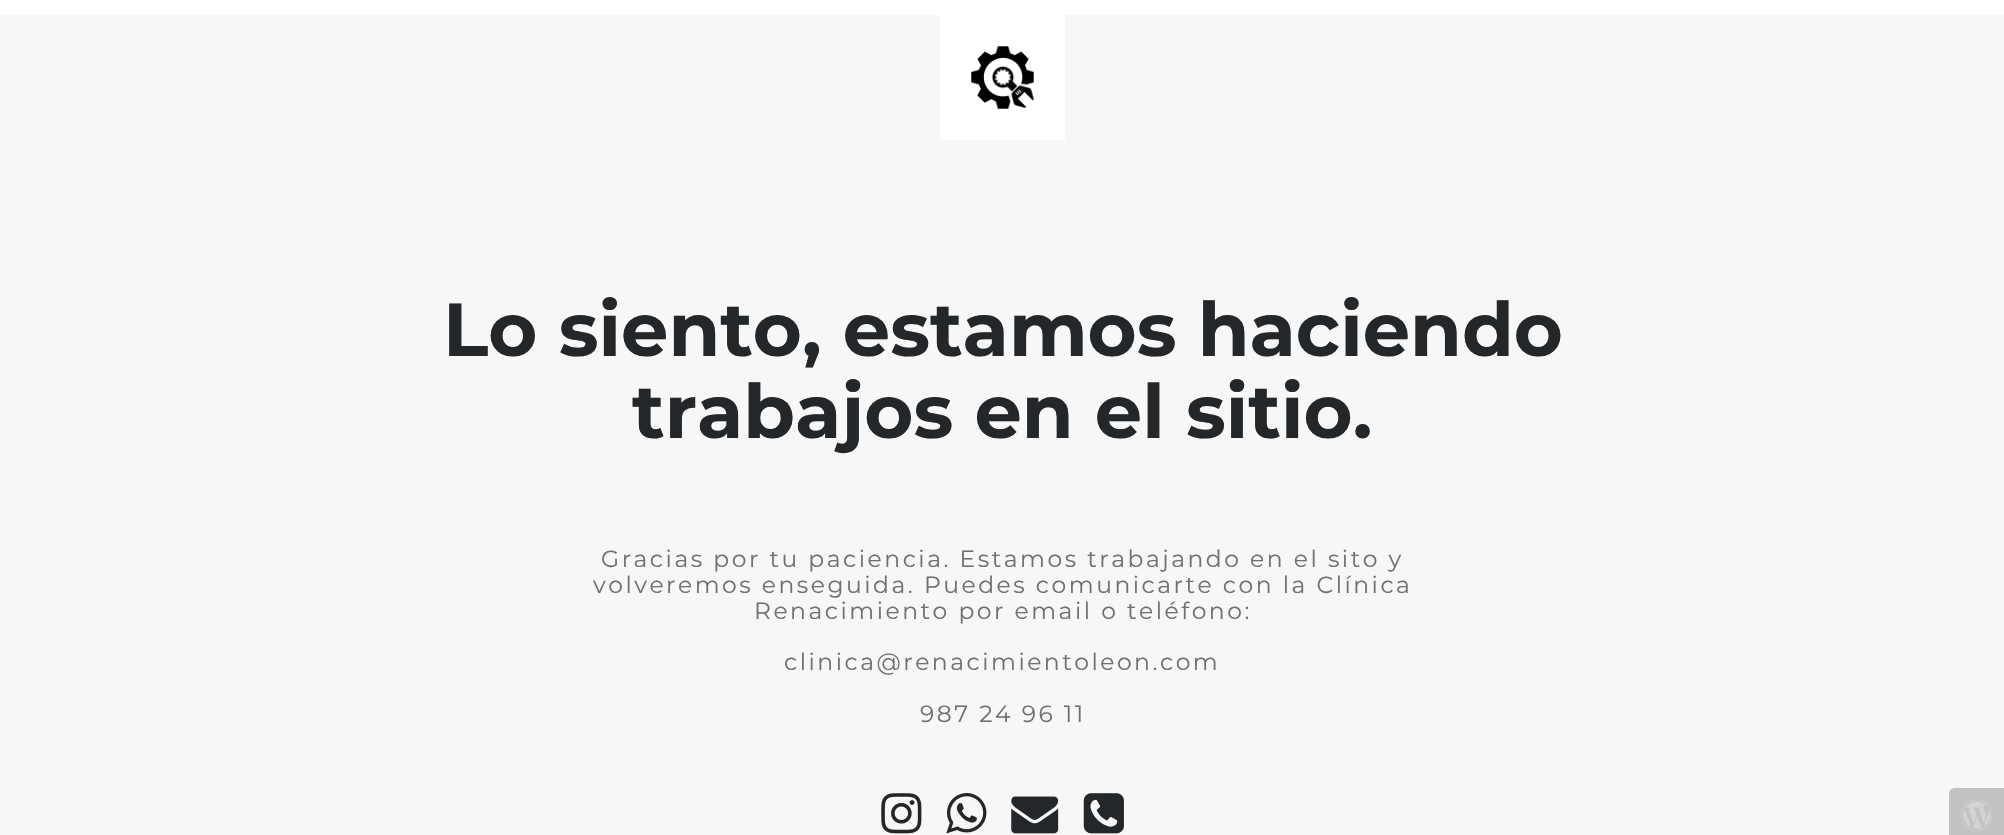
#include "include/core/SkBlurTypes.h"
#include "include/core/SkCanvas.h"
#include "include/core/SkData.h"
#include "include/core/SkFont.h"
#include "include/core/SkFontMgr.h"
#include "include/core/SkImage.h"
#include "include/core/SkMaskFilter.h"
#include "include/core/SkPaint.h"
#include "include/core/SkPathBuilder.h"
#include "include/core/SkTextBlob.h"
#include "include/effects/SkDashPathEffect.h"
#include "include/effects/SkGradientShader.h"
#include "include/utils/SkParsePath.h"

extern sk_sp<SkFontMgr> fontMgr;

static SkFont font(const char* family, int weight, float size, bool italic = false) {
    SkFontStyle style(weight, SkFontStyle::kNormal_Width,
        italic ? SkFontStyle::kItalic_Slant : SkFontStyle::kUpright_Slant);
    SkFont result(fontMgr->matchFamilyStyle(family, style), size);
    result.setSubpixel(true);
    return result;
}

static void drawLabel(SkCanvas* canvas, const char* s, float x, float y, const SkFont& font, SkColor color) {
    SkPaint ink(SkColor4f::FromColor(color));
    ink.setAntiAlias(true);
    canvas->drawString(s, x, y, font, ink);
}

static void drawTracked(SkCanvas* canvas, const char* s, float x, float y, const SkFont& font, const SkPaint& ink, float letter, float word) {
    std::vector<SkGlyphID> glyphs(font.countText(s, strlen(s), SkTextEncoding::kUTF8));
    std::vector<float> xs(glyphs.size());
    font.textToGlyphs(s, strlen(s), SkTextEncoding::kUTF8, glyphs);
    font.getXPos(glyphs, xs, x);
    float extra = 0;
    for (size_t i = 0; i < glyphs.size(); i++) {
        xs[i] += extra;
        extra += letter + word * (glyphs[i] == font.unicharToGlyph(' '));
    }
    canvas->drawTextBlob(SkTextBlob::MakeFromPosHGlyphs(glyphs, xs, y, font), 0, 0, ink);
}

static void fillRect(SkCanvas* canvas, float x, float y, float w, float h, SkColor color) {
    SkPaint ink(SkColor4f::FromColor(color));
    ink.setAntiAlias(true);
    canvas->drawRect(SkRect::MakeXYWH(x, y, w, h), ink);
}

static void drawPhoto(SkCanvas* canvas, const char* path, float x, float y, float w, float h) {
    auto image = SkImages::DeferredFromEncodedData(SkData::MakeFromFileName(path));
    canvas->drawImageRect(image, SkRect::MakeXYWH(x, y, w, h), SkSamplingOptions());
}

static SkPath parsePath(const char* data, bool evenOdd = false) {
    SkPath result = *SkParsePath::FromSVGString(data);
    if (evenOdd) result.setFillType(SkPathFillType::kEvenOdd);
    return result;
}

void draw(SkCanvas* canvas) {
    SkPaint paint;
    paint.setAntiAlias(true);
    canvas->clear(0xFFF7F7F7);
    fillRect(canvas, 0, 0, 2004, 15, 0xFFFFFFFF);
    fillRect(canvas, 940, 15, 125, 125, 0xFFFFFFFF);
    drawPhoto(canvas, "assets/img1.png", 971, 46, 63, 63);
    SkFont font1 = font("Montserrat", 100, 75);
    drawLabel(canvas, "Lo siento, estamos haciendo", 443, 356, font1, 0xFF23272A);
    drawLabel(canvas, "trabajos en el sitio.", 632, 438, font1, 0xFF23272A);
    SkFont font2 = font("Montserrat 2", 100, 23.45f);
    paint.setColor(0xFF707070);
    drawTracked(canvas, "Gracias por tu paciencia. Estamos trabajando en el sito y", 601, 567, font2, paint, 2.5f, 0);
    drawTracked(canvas, "volveremos enseguida. Puedes comunicarte con la Clínica", 593, 593, font2, paint, 2.5f, 0);
    drawTracked(canvas, "Renacimiento por email o teléfono:", 754, 619, font2, paint, 2.5f, 0);
    drawTracked(canvas, "clinica@renacimientoleon.com", 784, 670, font2, paint, 2.5f, 0);
    drawTracked(canvas, "987 24 96 11", 920, 722, font2, paint, 2.5f, 0);
    drawPhoto(canvas, "assets/img2.png", 881, 793, 41, 41);
    drawPhoto(canvas, "assets/img3.png", 946, 793, 41, 41);
    drawPhoto(canvas, "assets/img4.png", 1011, 796, 48, 38);
    drawPhoto(canvas, "assets/img5.png", 1083, 793, 41, 41);
    paint.setColor(0xFFC2C2C2);
    canvas->drawPath(parsePath("M1955 788H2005V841H1955C1951.5 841 1949 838.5 1949 835V794C1949 790.5 1951.5 788 1955 788Z"), paint);
    drawPhoto(canvas, "assets/img6.png", 1961, 799, 32, 32);
}
